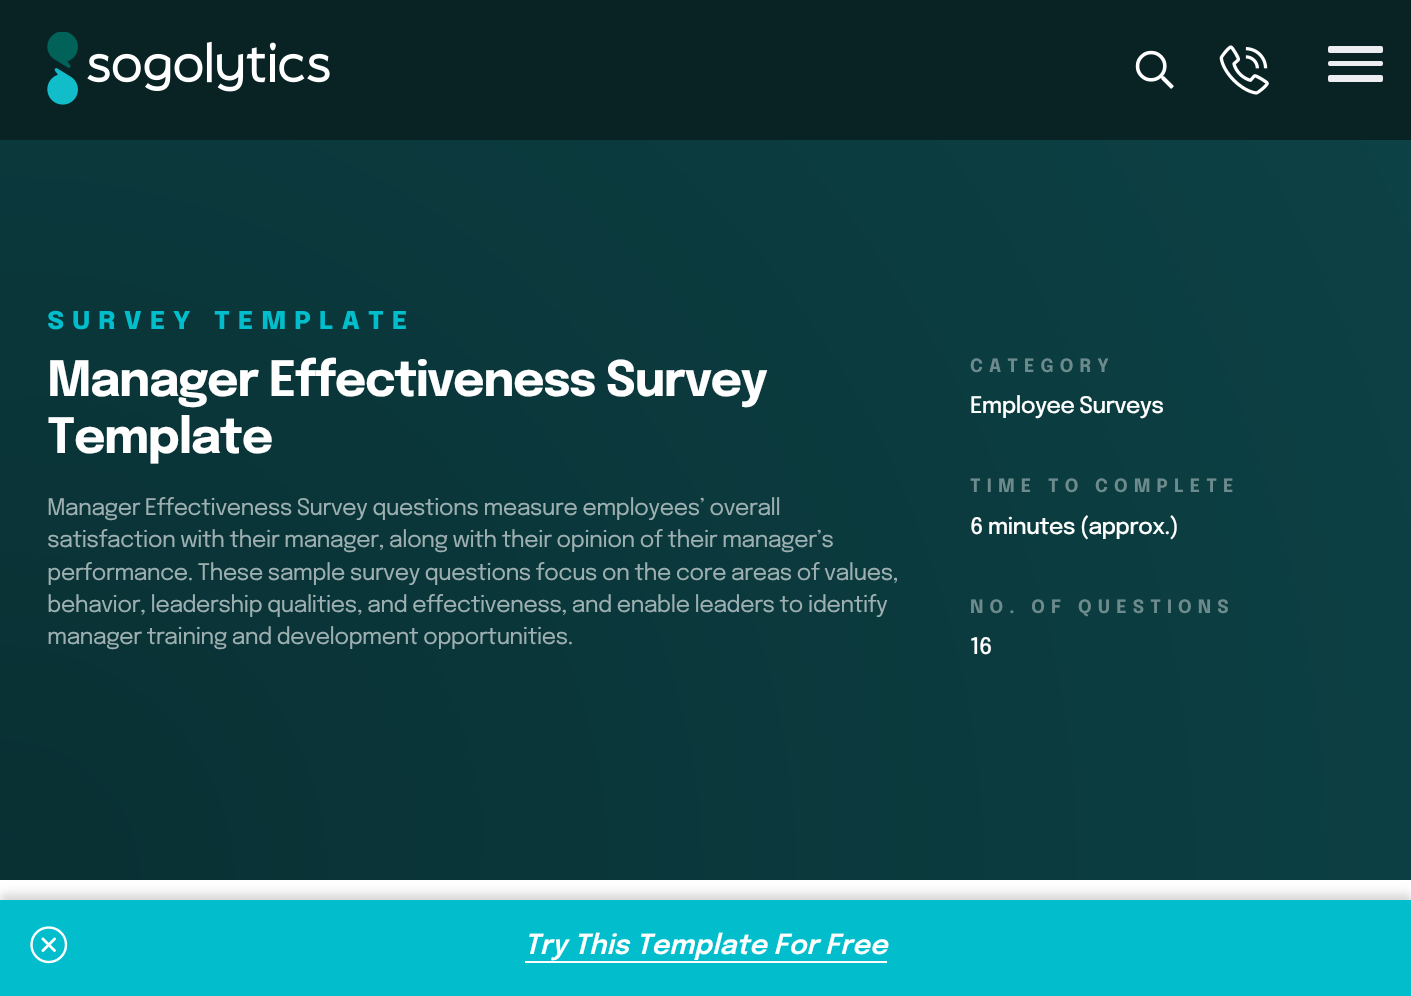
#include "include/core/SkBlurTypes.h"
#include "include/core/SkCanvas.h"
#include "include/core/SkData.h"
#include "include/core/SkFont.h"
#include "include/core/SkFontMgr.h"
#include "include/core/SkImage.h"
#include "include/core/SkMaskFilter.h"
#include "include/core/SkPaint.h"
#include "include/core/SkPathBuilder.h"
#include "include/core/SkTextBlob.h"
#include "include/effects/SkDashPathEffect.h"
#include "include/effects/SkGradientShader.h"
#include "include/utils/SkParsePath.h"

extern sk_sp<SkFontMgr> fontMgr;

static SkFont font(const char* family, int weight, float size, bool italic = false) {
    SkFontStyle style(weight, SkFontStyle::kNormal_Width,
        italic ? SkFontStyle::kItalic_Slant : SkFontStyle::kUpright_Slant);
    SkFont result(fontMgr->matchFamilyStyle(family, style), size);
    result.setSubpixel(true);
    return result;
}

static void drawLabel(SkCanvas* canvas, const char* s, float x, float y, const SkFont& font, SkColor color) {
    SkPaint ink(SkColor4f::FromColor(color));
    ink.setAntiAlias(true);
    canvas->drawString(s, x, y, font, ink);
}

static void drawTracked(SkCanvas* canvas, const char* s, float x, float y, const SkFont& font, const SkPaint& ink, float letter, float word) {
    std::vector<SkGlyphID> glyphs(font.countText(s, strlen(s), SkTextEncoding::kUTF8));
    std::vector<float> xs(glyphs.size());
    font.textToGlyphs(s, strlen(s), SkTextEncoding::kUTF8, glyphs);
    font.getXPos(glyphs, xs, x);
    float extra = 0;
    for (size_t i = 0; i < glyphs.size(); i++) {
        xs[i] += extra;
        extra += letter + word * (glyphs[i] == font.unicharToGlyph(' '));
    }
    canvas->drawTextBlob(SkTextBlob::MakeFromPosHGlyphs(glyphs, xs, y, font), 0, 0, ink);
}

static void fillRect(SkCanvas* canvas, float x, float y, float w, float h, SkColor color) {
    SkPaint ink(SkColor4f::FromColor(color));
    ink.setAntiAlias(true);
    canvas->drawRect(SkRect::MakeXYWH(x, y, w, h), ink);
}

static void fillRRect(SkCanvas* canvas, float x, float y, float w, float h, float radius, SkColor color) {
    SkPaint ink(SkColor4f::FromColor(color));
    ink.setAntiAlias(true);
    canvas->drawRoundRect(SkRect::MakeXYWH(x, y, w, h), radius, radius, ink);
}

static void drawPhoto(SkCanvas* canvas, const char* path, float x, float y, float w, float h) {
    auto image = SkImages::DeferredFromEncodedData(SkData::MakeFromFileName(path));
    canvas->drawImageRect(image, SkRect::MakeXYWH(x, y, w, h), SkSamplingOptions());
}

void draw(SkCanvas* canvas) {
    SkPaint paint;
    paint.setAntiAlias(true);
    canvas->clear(0xFFFFFFFF);
    fillRect(canvas, 0, 0, 1411, 140, 0xFF092224);
    drawPhoto(canvas, "assets/img1.png", 47, 32, 283, 73);
    fillRRect(canvas, 1328, 61, 55, 5, 2, 0xFFEBEDF1);
    fillRRect(canvas, 1328, 46, 55, 7, 2, 0xFFEBEDF1);
    fillRRect(canvas, 1328, 75, 55, 7, 2, 0xFFEBEDF1);
    drawPhoto(canvas, "assets/img2.png", 1135, 50, 39, 39);
    drawPhoto(canvas, "assets/img3.png", 1219, 45, 50, 50);
    {
        const SkColor colors[] = {0xFF093033, 0xFF0C4145};
        const float stops[] = {0, 1};
        paint.setShader(SkGradientShader::MakeRadial({0, 880}, 1594, colors, stops, 2, SkTileMode::kClamp));
        paint.setAlpha(255);
    }
    canvas->drawRect(SkRect::MakeXYWH(0, 140, 1411, 740), paint);
    SkFont font1 = font("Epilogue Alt", 700, 30.4f);
    paint.setShader(nullptr);
    paint.setColor(0xFF02BECC);
    drawTracked(canvas, "SURVEY TEMPLATE", 47, 329, font1, paint, 7.6f, 0);
    SkFont font2 = font("Epilogue", 700, 48.6f);
    paint.setColor(0xFFFFFFFF);
    drawTracked(canvas, "Manager Effectiveness Survey", 47, 396, font2, paint, -1.5f, 0);
    drawTracked(canvas, "Template", 47, 453, font2, paint, -1.5f, 0);
    SkFont font3 = font("Epilogue", 400, 22.8f);
    paint.setColor(0xFF9DAFB0);
    drawTracked(canvas, "Manager Effectiveness Survey questions measure employees’ overall", 47, 515, font3, paint, -0.75f, 0);
    drawTracked(canvas, "satisfaction with their manager, along with their opinion of their manager’s", 47, 547, font3, paint, -0.75f, 0);
    drawTracked(canvas, "performance. These sample survey questions focus on the core areas of values,", 47, 580, font3, paint, -0.75f, 0);
    drawTracked(canvas, "behavior, leadership qualities, and effectiveness, and enable leaders to identify", 47, 612, font3, paint, -0.75f, 0);
    drawTracked(canvas, "manager training and development opportunities.", 47, 644, font3, paint, -0.75f, 0);
    SkFont font4 = font("Epilogue", 700, 18.25f);
    paint.setColor(0xFF6D8A8C);
    drawTracked(canvas, "CATEGORY", 970, 372, font4, paint, 6.1f, 0);
    SkFont font5 = font("Epilogue", 500, 22.8f);
    paint.setColor(0xFFFFFFFF);
    drawTracked(canvas, "Employee Surveys", 970, 413, font5, paint, -0.75f, 0);
    paint.setColor(0xFF6D8A8C);
    drawTracked(canvas, "TIME TO COMPLETE", 970, 492, font4, paint, 6.1f, 0);
    paint.setColor(0xFFFFFFFF);
    drawTracked(canvas, "6 minutes (approx.)", 970, 534, font5, paint, -0.75f, 0);
    paint.setColor(0xFF6D8A8C);
    drawTracked(canvas, "NO. OF QUESTIONS", 970, 613, font4, paint, 6.1f, 0);
    paint.setColor(0xFFFFFFFF);
    drawTracked(canvas, "16", 970, 654, font5, paint, -0.75f, 0);
    paint.setColor(0x29000000);
    paint.setMaskFilter(SkMaskFilter::MakeBlur(kNormal_SkBlurStyle, 4.5f));
    canvas->drawRect(SkRect::MakeXYWH(0, 894, 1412, 98), paint);
    paint.setMaskFilter(nullptr);
    fillRect(canvas, 0, 900, 1411, 96, 0xFF02BECC);
    drawPhoto(canvas, "assets/img4.png", 30, 926, 38, 38);
    SkFont font6 = font("Epilogue", 600, 27.3f, true);
    drawLabel(canvas, "Try This Template For Free", 524, 954, font6, 0xFFFFFFFF);
    fillRect(canvas, 525, 961, 362, 2, 0xFFFFFFFF);
}
